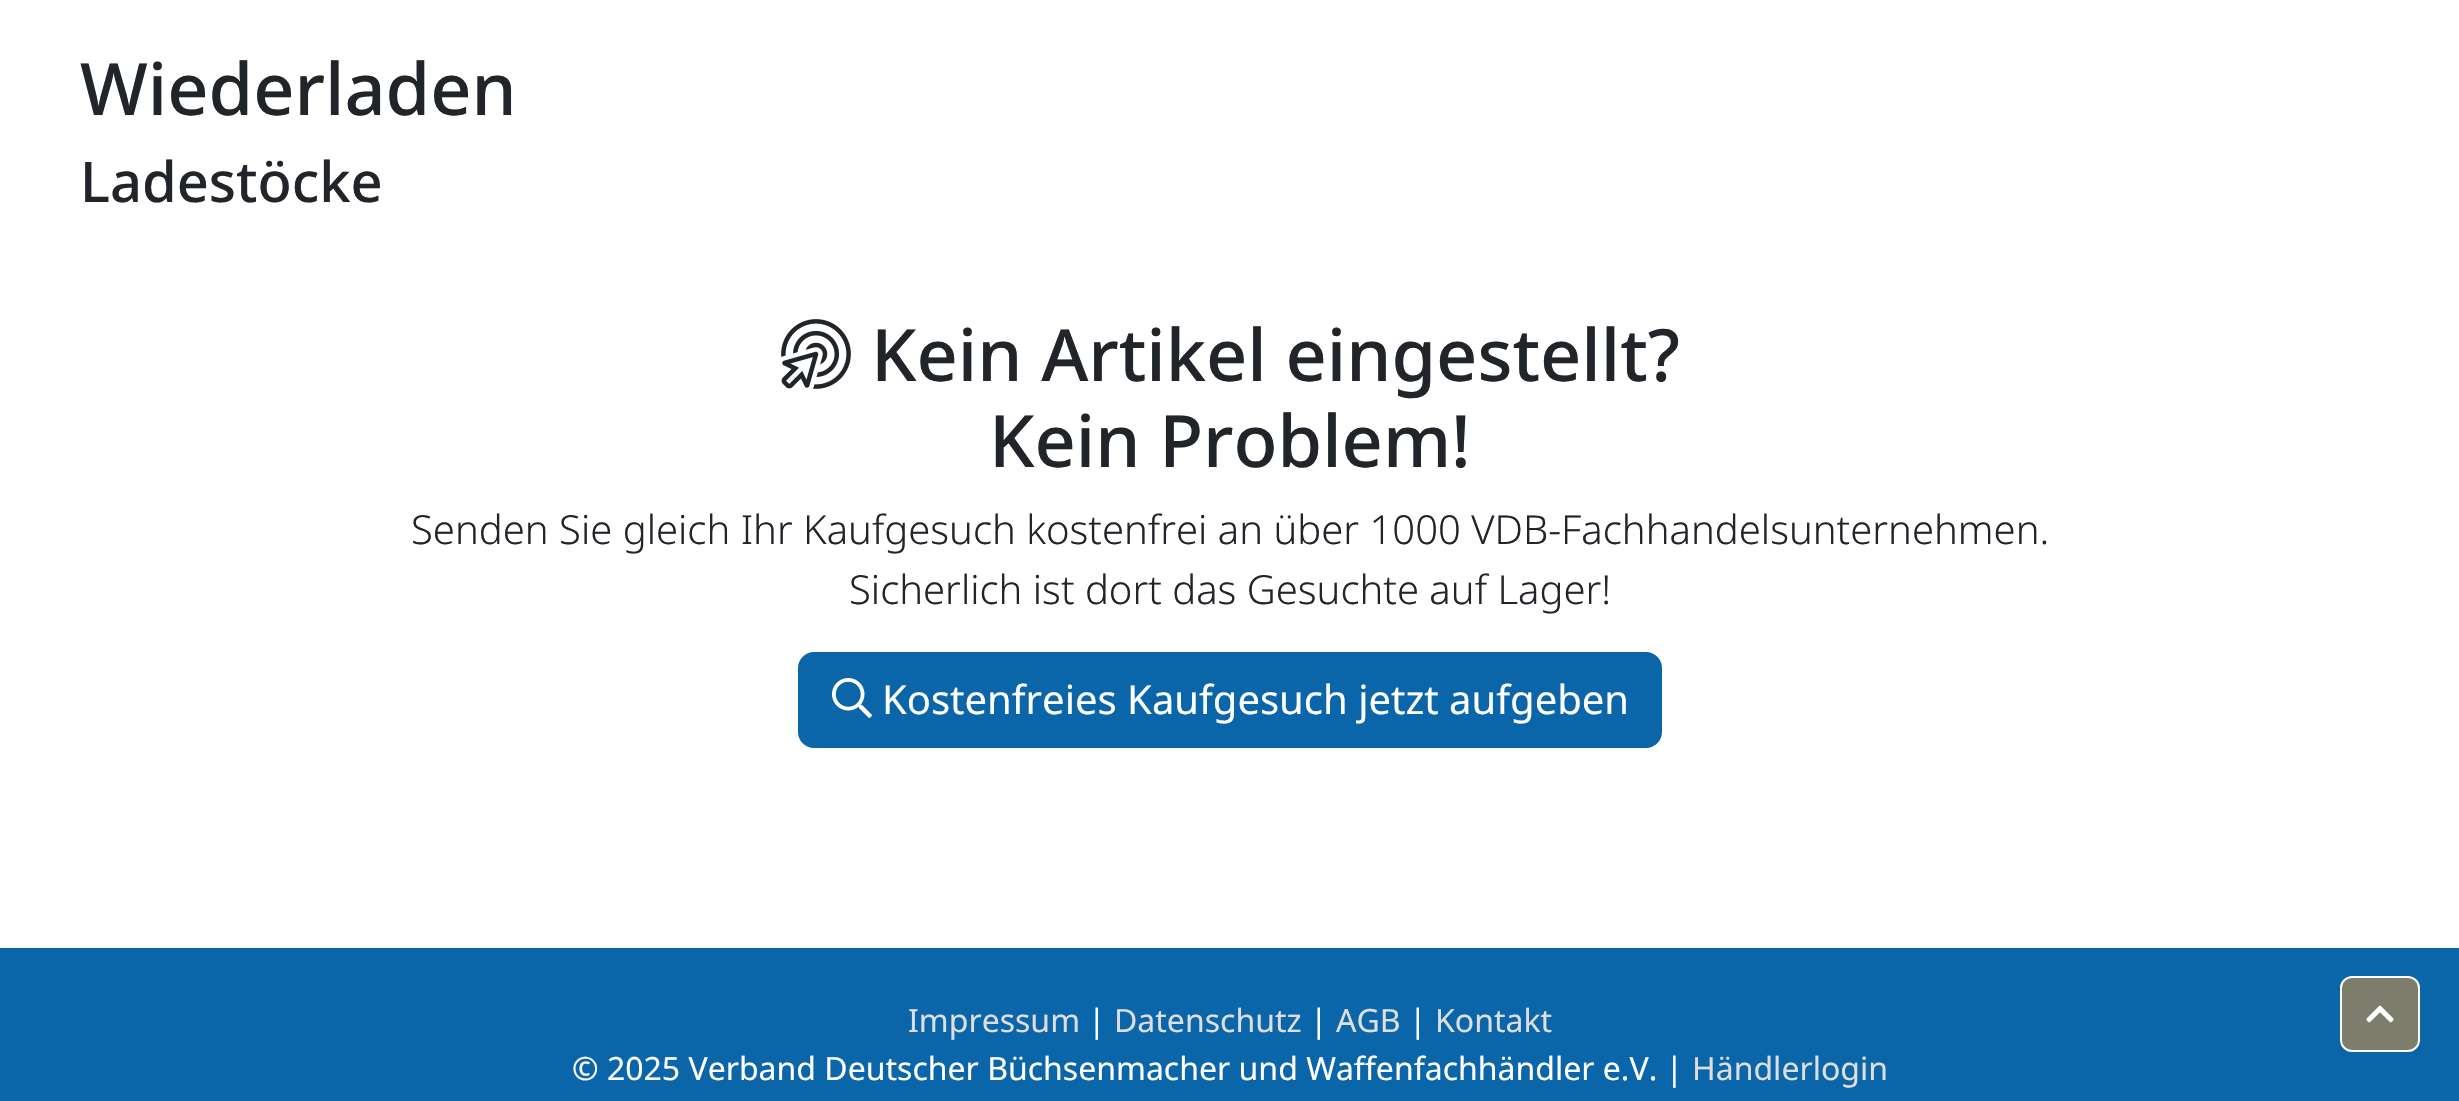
#include "include/core/SkBlurTypes.h"
#include "include/core/SkCanvas.h"
#include "include/core/SkData.h"
#include "include/core/SkFont.h"
#include "include/core/SkFontMgr.h"
#include "include/core/SkImage.h"
#include "include/core/SkMaskFilter.h"
#include "include/core/SkPaint.h"
#include "include/core/SkPathBuilder.h"
#include "include/core/SkTextBlob.h"
#include "include/effects/SkDashPathEffect.h"
#include "include/effects/SkGradientShader.h"
#include "include/utils/SkParsePath.h"

extern sk_sp<SkFontMgr> fontMgr;

static SkFont font(const char* family, int weight, float size, bool italic = false) {
    SkFontStyle style(weight, SkFontStyle::kNormal_Width,
        italic ? SkFontStyle::kItalic_Slant : SkFontStyle::kUpright_Slant);
    SkFont result(fontMgr->matchFamilyStyle(family, style), size);
    result.setSubpixel(true);
    return result;
}

static void drawLabel(SkCanvas* canvas, const char* s, float x, float y, const SkFont& font, SkColor color) {
    SkPaint ink(SkColor4f::FromColor(color));
    ink.setAntiAlias(true);
    canvas->drawString(s, x, y, font, ink);
}

static void fillRect(SkCanvas* canvas, float x, float y, float w, float h, SkColor color) {
    SkPaint ink(SkColor4f::FromColor(color));
    ink.setAntiAlias(true);
    canvas->drawRect(SkRect::MakeXYWH(x, y, w, h), ink);
}

static void drawPhoto(SkCanvas* canvas, const char* path, float x, float y, float w, float h) {
    auto image = SkImages::DeferredFromEncodedData(SkData::MakeFromFileName(path));
    canvas->drawImageRect(image, SkRect::MakeXYWH(x, y, w, h), SkSamplingOptions());
}

void draw(SkCanvas* canvas) {
    SkPaint paint;
    paint.setAntiAlias(true);
    canvas->clear(0xFFFFFFFF);
    SkFont font1 = font("Noto Sans", 500, 72);
    drawLabel(canvas, "Wiederladen", 80, 115, font1, 0xFF212529);
    SkFont font2 = font("Noto Sans", 500, 56);
    drawLabel(canvas, "Ladestöcke", 80, 202, font2, 0xFF212529);
    drawPhoto(canvas, "assets/img1.png", 781, 319, 70, 70);
    drawLabel(canvas, "Kein Artikel eingestellt?", 871, 381, font1, 0xFF212529);
    drawLabel(canvas, "Kein Problem!", 989, 467, font1, 0xFF212529);
    SkFont font3 = font("Noto Sans", 300, 40);
    drawLabel(canvas, "Senden Sie gleich Ihr Kaufgesuch kostenfrei an über 1000 VDB-Fachhandelsunternehmen.", 411, 544, font3, 0xFF212529);
    drawLabel(canvas, "Sicherlich ist dort das Gesuchte auf Lager!", 849, 604, font3, 0xFF212529);
    paint.setColor(0xFF0B65A9);
    canvas->drawRoundRect(SkRect::MakeXYWH(799, 653, 862, 94), 15, 15, paint);
    paint.setStroke(true);
    paint.setStrokeWidth(2);
    canvas->drawRoundRect(SkRect::MakeXYWH(799, 653, 862, 94), 15, 15, paint);
    drawPhoto(canvas, "assets/img2.png", 832, 678, 40, 40);
    SkFont font4 = font("Noto Sans", 400, 40);
    drawLabel(canvas, "Kostenfreies Kaufgesuch jetzt aufgeben", 882, 714, font4, 0xFFFFFFFF);
    fillRect(canvas, 0, 948, 2459, 153, 0xFF0B65A9);
    SkFont font5 = font("Noto Sans", 400, 32);
    drawLabel(canvas, "Impressum", 908, 1032, font5, 0xFFDEDEDE);
    drawLabel(canvas, "|", 1088, 1032, font5, 0xFFFFFFFF);
    drawLabel(canvas, "Datenschutz", 1114, 1032, font5, 0xFFDEDEDE);
    drawLabel(canvas, "|", 1310, 1032, font5, 0xFFFFFFFF);
    drawLabel(canvas, "AGB", 1336, 1032, font5, 0xFFDEDEDE);
    drawLabel(canvas, "|", 1409, 1032, font5, 0xFFFFFFFF);
    drawLabel(canvas, "Kontakt", 1435, 1032, font5, 0xFFDEDEDE);
    drawLabel(canvas, "© 2025 Verband Deutscher Büchsenmacher und Waffenfachhändler e.V. |", 572, 1080, font5, 0xFFFFFFFF);
    drawLabel(canvas, "Händlerlogin", 1692, 1080, font5, 0xFFDEDEDE);
    paint.setStroke(false);
    paint.setColor(0xFF7D7D6E);
    canvas->drawRoundRect(SkRect::MakeXYWH(2341, 977, 78, 74), 11, 11, paint);
    paint.setStroke(true);
    paint.setColor(0xFFFFFFFF);
    canvas->drawRoundRect(SkRect::MakeXYWH(2341, 977, 78, 74), 11, 11, paint);
    drawPhoto(canvas, "assets/img3.png", 2366, 1005, 28, 18);
}
